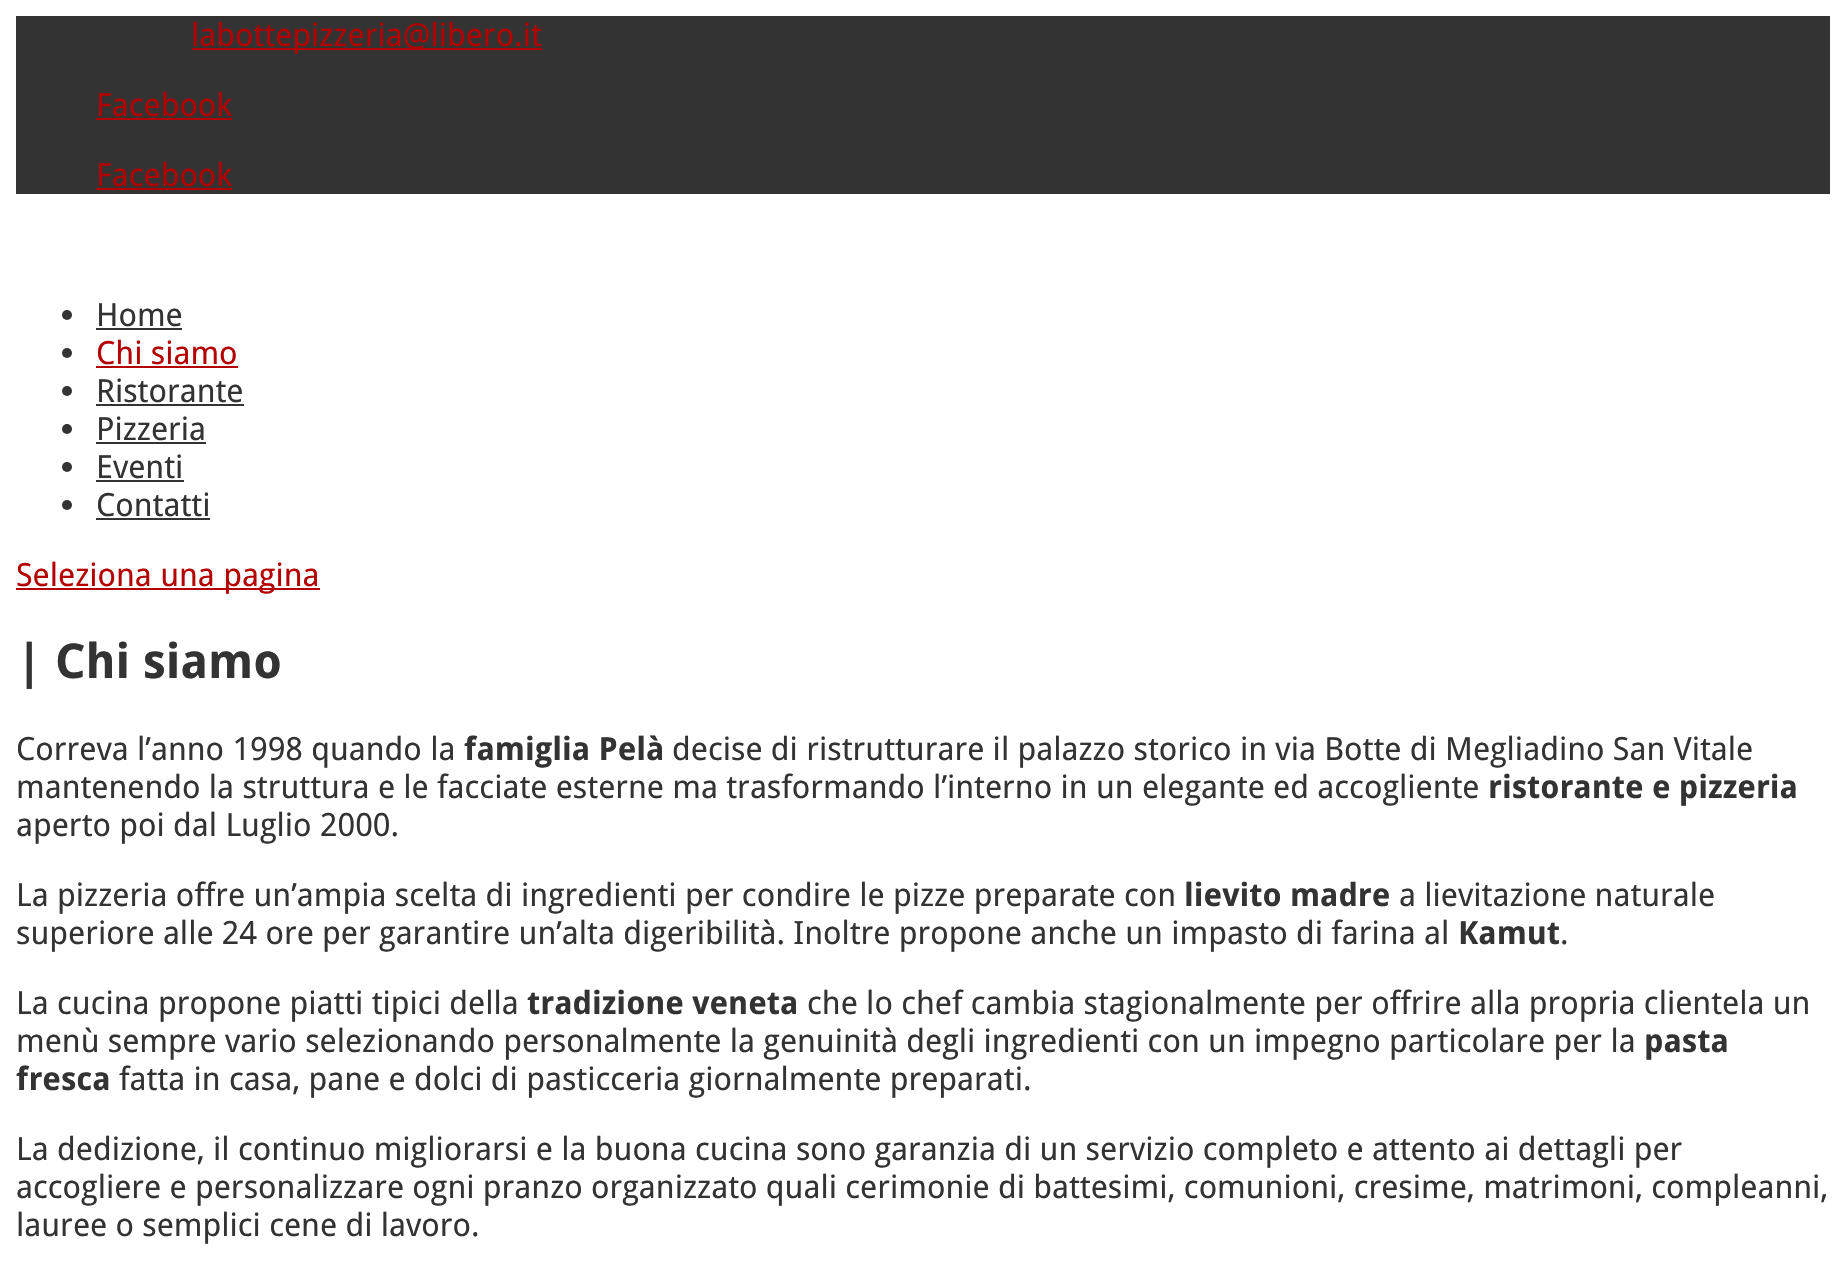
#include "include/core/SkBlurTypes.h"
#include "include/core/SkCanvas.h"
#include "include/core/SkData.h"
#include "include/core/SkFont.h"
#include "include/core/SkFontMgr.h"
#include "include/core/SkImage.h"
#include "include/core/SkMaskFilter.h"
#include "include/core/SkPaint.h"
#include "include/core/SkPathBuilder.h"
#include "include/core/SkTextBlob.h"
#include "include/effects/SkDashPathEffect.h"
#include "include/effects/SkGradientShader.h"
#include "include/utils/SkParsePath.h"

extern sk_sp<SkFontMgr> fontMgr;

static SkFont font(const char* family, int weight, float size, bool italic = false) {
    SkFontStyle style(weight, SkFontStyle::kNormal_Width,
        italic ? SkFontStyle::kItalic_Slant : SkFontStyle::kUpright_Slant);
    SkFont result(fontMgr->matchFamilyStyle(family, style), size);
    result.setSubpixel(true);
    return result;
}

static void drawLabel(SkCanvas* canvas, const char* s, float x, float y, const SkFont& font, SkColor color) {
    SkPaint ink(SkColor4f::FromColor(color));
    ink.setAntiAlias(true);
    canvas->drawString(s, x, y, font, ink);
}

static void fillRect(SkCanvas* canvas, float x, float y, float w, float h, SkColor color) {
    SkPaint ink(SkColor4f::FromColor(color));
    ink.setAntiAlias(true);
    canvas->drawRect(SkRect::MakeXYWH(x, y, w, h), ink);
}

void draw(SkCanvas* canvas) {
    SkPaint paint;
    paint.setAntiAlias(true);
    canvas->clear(0xFFFFFFFF);
    fillRect(canvas, 16, 16, 1814, 178, 0xFF333333);
    fillRect(canvas, 192, 48, 350, 2, 0xFFB40000);
    SkFont font1 = font("Droid Sans", 400, 32);
    drawLabel(canvas, "labottepizzeria@libero.it", 191, 46, font1, 0xFFB40000);
    drawLabel(canvas, "Facebook", 96, 116, font1, 0xFFB40000);
    fillRect(canvas, 96, 118, 136, 2, 0xFFB40000);
    drawLabel(canvas, "Facebook", 96, 186, font1, 0xFFB40000);
    fillRect(canvas, 96, 188, 136, 2, 0xFFB40000);
    paint.setColor(0xFF333333);
    canvas->drawCircle(67, 315, 5, paint);
    drawLabel(canvas, "Home", 96, 326, font1, 0xFF333333);
    fillRect(canvas, 96, 328, 86, 2, 0xFF333333);
    canvas->drawCircle(67, 353, 5, paint);
    drawLabel(canvas, "Chi siamo", 96, 364, font1, 0xFFB40000);
    fillRect(canvas, 96, 366, 142, 2, 0xFFB40000);
    canvas->drawCircle(67, 391, 5, paint);
    drawLabel(canvas, "Ristorante", 96, 402, font1, 0xFF333333);
    fillRect(canvas, 96, 404, 148, 2, 0xFF333333);
    canvas->drawCircle(67, 429, 5, paint);
    drawLabel(canvas, "Pizzeria", 96, 440, font1, 0xFF333333);
    fillRect(canvas, 96, 442, 110, 2, 0xFF333333);
    canvas->drawCircle(67, 467, 5, paint);
    drawLabel(canvas, "Eventi", 96, 478, font1, 0xFF333333);
    fillRect(canvas, 96, 480, 88, 2, 0xFF333333);
    canvas->drawCircle(67, 505, 5, paint);
    drawLabel(canvas, "Contatti", 96, 516, font1, 0xFF333333);
    fillRect(canvas, 96, 518, 114, 2, 0xFF333333);
    fillRect(canvas, 16, 588, 304, 2, 0xFFB40000);
    drawLabel(canvas, "Seleziona una pagina", 16, 586, font1, 0xFFB40000);
    SkFont font2 = font("Droid Sans", 700, 48);
    drawLabel(canvas, "| Chi siamo", 16, 678, font2, 0xFF333333);
    drawLabel(canvas, "Correva l’anno 1998 quando la", 16, 760, font1, 0xFF333333);
    SkFont font3 = font("Droid Sans", 700, 32);
    drawLabel(canvas, "famiglia Pelà", 464, 760, font3, 0xFF333333);
    drawLabel(canvas, "decise di ristrutturare il palazzo storico in via Botte di Megliadino San Vitale", 672, 760, font1, 0xFF333333);
    drawLabel(canvas, "mantenendo la struttura e le facciate esterne ma trasformando l’interno in un elegante ed accogliente", 16, 798, font1, 0xFF333333);
    drawLabel(canvas, "ristorante e pizzeria", 1488, 798, font3, 0xFF333333);
    drawLabel(canvas, "aperto poi dal Luglio 2000.", 16, 836, font1, 0xFF333333);
    drawLabel(canvas, "La pizzeria offre un’ampia scelta di ingredienti per condire le pizze preparate con", 16, 906, font1, 0xFF333333);
    drawLabel(canvas, "lievito madre", 1184, 906, font3, 0xFF333333);
    drawLabel(canvas, "a lievitazione naturale", 1399, 906, font1, 0xFF333333);
    drawLabel(canvas, "superiore alle 24 ore per garantire un’alta digeribilità. Inoltre propone anche un impasto di farina al", 16, 944, font1, 0xFF333333);
    drawLabel(canvas, "Kamut", 1458, 944, font3, 0xFF333333);
    drawLabel(canvas, ".", 1560, 944, font1, 0xFF333333);
    drawLabel(canvas, "La cucina propone piatti tipici della", 16, 1014, font1, 0xFF333333);
    drawLabel(canvas, "tradizione veneta", 527, 1014, font3, 0xFF333333);
    drawLabel(canvas, "che lo chef cambia stagionalmente per offrire alla propria clientela un", 807, 1014, font1, 0xFF333333);
    drawLabel(canvas, "menù sempre vario selezionando personalmente la genuinità degli ingredienti con un impegno particolare per la", 16, 1052, font1, 0xFF333333);
    drawLabel(canvas, "pasta", 1644, 1052, font3, 0xFF333333);
    drawLabel(canvas, "fresca", 16, 1090, font3, 0xFF333333);
    drawLabel(canvas, "fatta in casa, pane e dolci di pasticceria giornalmente preparati.", 119, 1090, font1, 0xFF333333);
    drawLabel(canvas, "La dedizione, il continuo migliorarsi e la buona cucina sono garanzia di un servizio completo e attento ai dettagli per", 16, 1160, font1, 0xFF333333);
    drawLabel(canvas, "accogliere e personalizzare ogni pranzo organizzato quali cerimonie di battesimi, comunioni, cresime, matrimoni, compleanni,", 16, 1198, font1, 0xFF333333);
    drawLabel(canvas, "lauree o semplici cene di lavoro.", 16, 1236, font1, 0xFF333333);
}
